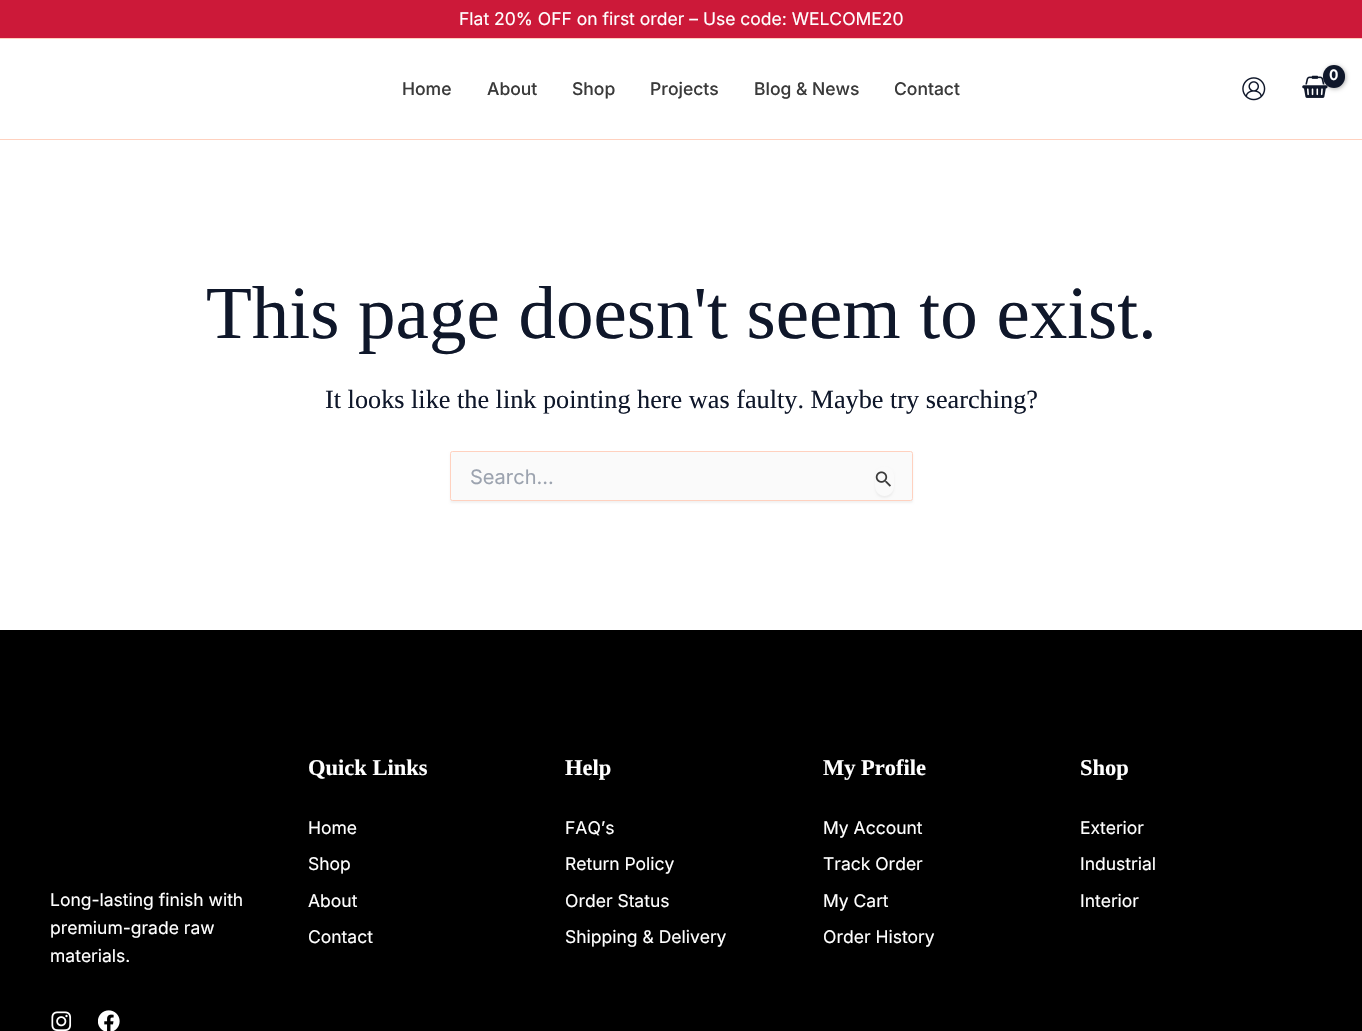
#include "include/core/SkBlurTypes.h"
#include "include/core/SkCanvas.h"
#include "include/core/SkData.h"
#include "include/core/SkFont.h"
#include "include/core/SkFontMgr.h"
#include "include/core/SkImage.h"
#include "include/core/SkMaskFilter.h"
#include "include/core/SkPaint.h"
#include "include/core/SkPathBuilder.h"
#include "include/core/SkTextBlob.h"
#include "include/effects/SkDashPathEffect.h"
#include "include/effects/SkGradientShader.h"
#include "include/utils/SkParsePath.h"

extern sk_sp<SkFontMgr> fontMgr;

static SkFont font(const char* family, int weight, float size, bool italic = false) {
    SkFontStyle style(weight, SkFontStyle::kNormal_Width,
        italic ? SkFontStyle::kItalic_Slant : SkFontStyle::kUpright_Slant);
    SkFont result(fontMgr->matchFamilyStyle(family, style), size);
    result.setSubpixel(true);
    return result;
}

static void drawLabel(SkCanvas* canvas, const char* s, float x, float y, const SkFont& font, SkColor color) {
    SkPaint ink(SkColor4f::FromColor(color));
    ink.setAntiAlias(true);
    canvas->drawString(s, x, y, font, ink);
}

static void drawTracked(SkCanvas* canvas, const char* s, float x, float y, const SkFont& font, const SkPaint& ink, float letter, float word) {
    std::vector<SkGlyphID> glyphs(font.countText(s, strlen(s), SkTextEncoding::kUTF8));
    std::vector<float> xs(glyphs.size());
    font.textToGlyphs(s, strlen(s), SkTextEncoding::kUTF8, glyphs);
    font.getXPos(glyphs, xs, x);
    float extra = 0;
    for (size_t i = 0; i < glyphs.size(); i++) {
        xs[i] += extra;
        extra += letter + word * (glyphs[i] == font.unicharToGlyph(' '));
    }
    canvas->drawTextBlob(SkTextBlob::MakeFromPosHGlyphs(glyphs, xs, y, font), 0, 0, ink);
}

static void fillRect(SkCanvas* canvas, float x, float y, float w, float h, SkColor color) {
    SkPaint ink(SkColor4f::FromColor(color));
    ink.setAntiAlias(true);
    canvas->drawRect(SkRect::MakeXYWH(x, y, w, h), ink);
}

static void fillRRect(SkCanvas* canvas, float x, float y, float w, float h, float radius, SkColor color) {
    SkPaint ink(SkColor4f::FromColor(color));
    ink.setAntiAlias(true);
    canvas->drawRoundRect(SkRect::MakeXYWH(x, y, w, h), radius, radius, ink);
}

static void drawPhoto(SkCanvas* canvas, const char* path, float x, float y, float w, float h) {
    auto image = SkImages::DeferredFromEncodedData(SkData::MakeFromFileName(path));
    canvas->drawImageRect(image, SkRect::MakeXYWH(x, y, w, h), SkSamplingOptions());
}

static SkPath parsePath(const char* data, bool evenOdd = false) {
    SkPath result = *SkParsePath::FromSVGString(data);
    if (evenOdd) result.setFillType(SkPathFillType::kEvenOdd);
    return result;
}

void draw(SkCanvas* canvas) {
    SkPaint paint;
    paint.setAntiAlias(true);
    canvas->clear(0xFFFFFFFF);
    fillRect(canvas, 0, 0, 1362, 38, 0xFFCC1939);
    fillRect(canvas, 0, 38, 1362, 1, 0xFFFFD1BF);
    SkFont font1 = font("Inter", 400, 17.5f);
    drawLabel(canvas, "Flat 20% OFF on first order – Use code: WELCOME20", 459, 25, font1, 0xFFFFFFFF);
    fillRect(canvas, 0, 139, 1362, 1, 0xFFFFD1BF);
    drawPhoto(canvas, "assets/img1.png", 1302, 75, 26, 23);
    paint.setColor(0x4D000000);
    paint.setMaskFilter(SkMaskFilter::MakeBlur(kNormal_SkBlurStyle, 2));
    canvas->drawRoundRect(SkRect::MakeXYWH(1324, 66, 22, 23), 11, 11, paint);
    paint.setMaskFilter(nullptr);
    fillRRect(canvas, 1323, 65, 22, 23, 11, 0xFF0F172A);
    SkFont font2 = font("Inter", 700, 14);
    paint.setColor(0xFFFFFFFF);
    drawTracked(canvas, "0", 1329, 80, font2, paint, -1, 0);
    drawPhoto(canvas, "assets/img2.png", 1242, 77, 24, 24);
    SkFont font3 = font("Inter", 500, 17.5f);
    drawLabel(canvas, "Home", 402, 95, font3, 0xFF3A3A3A);
    drawLabel(canvas, "About", 487, 95, font3, 0xFF3A3A3A);
    drawLabel(canvas, "Shop", 572, 95, font3, 0xFF3A3A3A);
    drawLabel(canvas, "Projects", 650, 95, font3, 0xFF3A3A3A);
    drawLabel(canvas, "Blog & News", 754, 95, font3, 0xFF3A3A3A);
    drawLabel(canvas, "Contact", 894, 95, font3, 0xFF3A3A3A);
    SkFont font4 = font("Liberation Serif", 400, 75);
    drawLabel(canvas, "This page doesn't seem to exist.", 206, 338, font4, 0xFF0F172A);
    SkFont font5 = font("Liberation Serif", 400, 26.25f);
    drawLabel(canvas, "It looks like the link pointing here was faulty. Maybe try searching?", 325, 408, font5, 0xFF0F172A);
    paint.setColor(0x0D000000);
    paint.setMaskFilter(SkMaskFilter::MakeBlur(kNormal_SkBlurStyle, 1));
    canvas->drawRoundRect(SkRect::MakeXYWH(450, 453, 463, 50), 2.5f, 2.5f, paint);
    paint.setMaskFilter(nullptr);
    paint.setColor(0xFFFAFAFA);
    canvas->drawRoundRect(SkRect::MakeXYWH(450.5f, 451.5f, 462, 49), 2, 2, paint);
    paint.setStroke(true);
    paint.setStrokeWidth(1);
    paint.setColor(0xFFFFD1BF);
    canvas->drawRoundRect(SkRect::MakeXYWH(450.5f, 451.5f, 462, 49), 2, 2, paint);
    SkFont font6 = font("Inter", 400, 20);
    drawLabel(canvas, "Search...", 470, 484, font6, 0xFF9CA3AF);
    canvas->save();
    canvas->clipPath(parsePath("M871 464H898V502H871ZM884.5 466C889.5 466 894 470.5 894 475.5V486.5C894 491.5 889.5 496 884.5 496C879.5 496 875 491.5 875 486.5V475.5C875 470.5 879.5 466 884.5 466Z", true), true);
    paint.setStroke(false);
    paint.setColor(0x0D000000);
    paint.setMaskFilter(SkMaskFilter::MakeBlur(kNormal_SkBlurStyle, 1));
    canvas->drawRoundRect(SkRect::MakeXYWH(875, 468, 19, 30), 9.5f, 9.5f, paint);
    paint.setMaskFilter(nullptr);
    canvas->restore();
    drawPhoto(canvas, "assets/img3.png", 875, 471, 16, 16);
    fillRect(canvas, 0, 630, 1362, 401, 0xFF000000);
    SkFont font7 = font("Liberation Serif", 700, 22.5f);
    drawLabel(canvas, "Quick Links", 308, 775, font7, 0xFFFFFFFF);
    drawLabel(canvas, "Home", 308, 834, font1, 0xFFFFFFFF);
    drawLabel(canvas, "Shop", 308, 870, font1, 0xFFFFFFFF);
    drawLabel(canvas, "About", 308, 907, font1, 0xFFFFFFFF);
    drawLabel(canvas, "Contact", 308, 943, font1, 0xFFFFFFFF);
    drawLabel(canvas, "Help", 565, 775, font7, 0xFFFFFFFF);
    drawLabel(canvas, "FAQ’s", 565, 834, font1, 0xFFFFFFFF);
    drawLabel(canvas, "Return Policy", 565, 870, font1, 0xFFFFFFFF);
    drawLabel(canvas, "Order Status", 565, 907, font1, 0xFFFFFFFF);
    drawLabel(canvas, "Shipping & Delivery", 565, 943, font1, 0xFFFFFFFF);
    drawLabel(canvas, "My Profile", 823, 775, font7, 0xFFFFFFFF);
    drawLabel(canvas, "My Account", 823, 834, font1, 0xFFFFFFFF);
    drawLabel(canvas, "Track Order", 823, 870, font1, 0xFFFFFFFF);
    drawLabel(canvas, "My Cart", 823, 907, font1, 0xFFFFFFFF);
    drawLabel(canvas, "Order History", 823, 943, font1, 0xFFFFFFFF);
    drawLabel(canvas, "Shop", 1080, 775, font7, 0xFFFFFFFF);
    drawLabel(canvas, "Exterior", 1080, 834, font1, 0xFFFFFFFF);
    drawLabel(canvas, "Industrial", 1080, 870, font1, 0xFFFFFFFF);
    drawLabel(canvas, "Interior", 1080, 907, font1, 0xFFFFFFFF);
    drawLabel(canvas, "Long-lasting finish with", 50, 906, font1, 0xFFFFFFFF);
    drawLabel(canvas, "premium-grade raw", 50, 934, font1, 0xFFFFFFFF);
    drawLabel(canvas, "materials.", 50, 962, font1, 0xFFFFFFFF);
    drawPhoto(canvas, "assets/img4.png", 51, 1011, 21, 20);
    drawPhoto(canvas, "assets/img5.png", 98, 1010, 22, 21);
}
